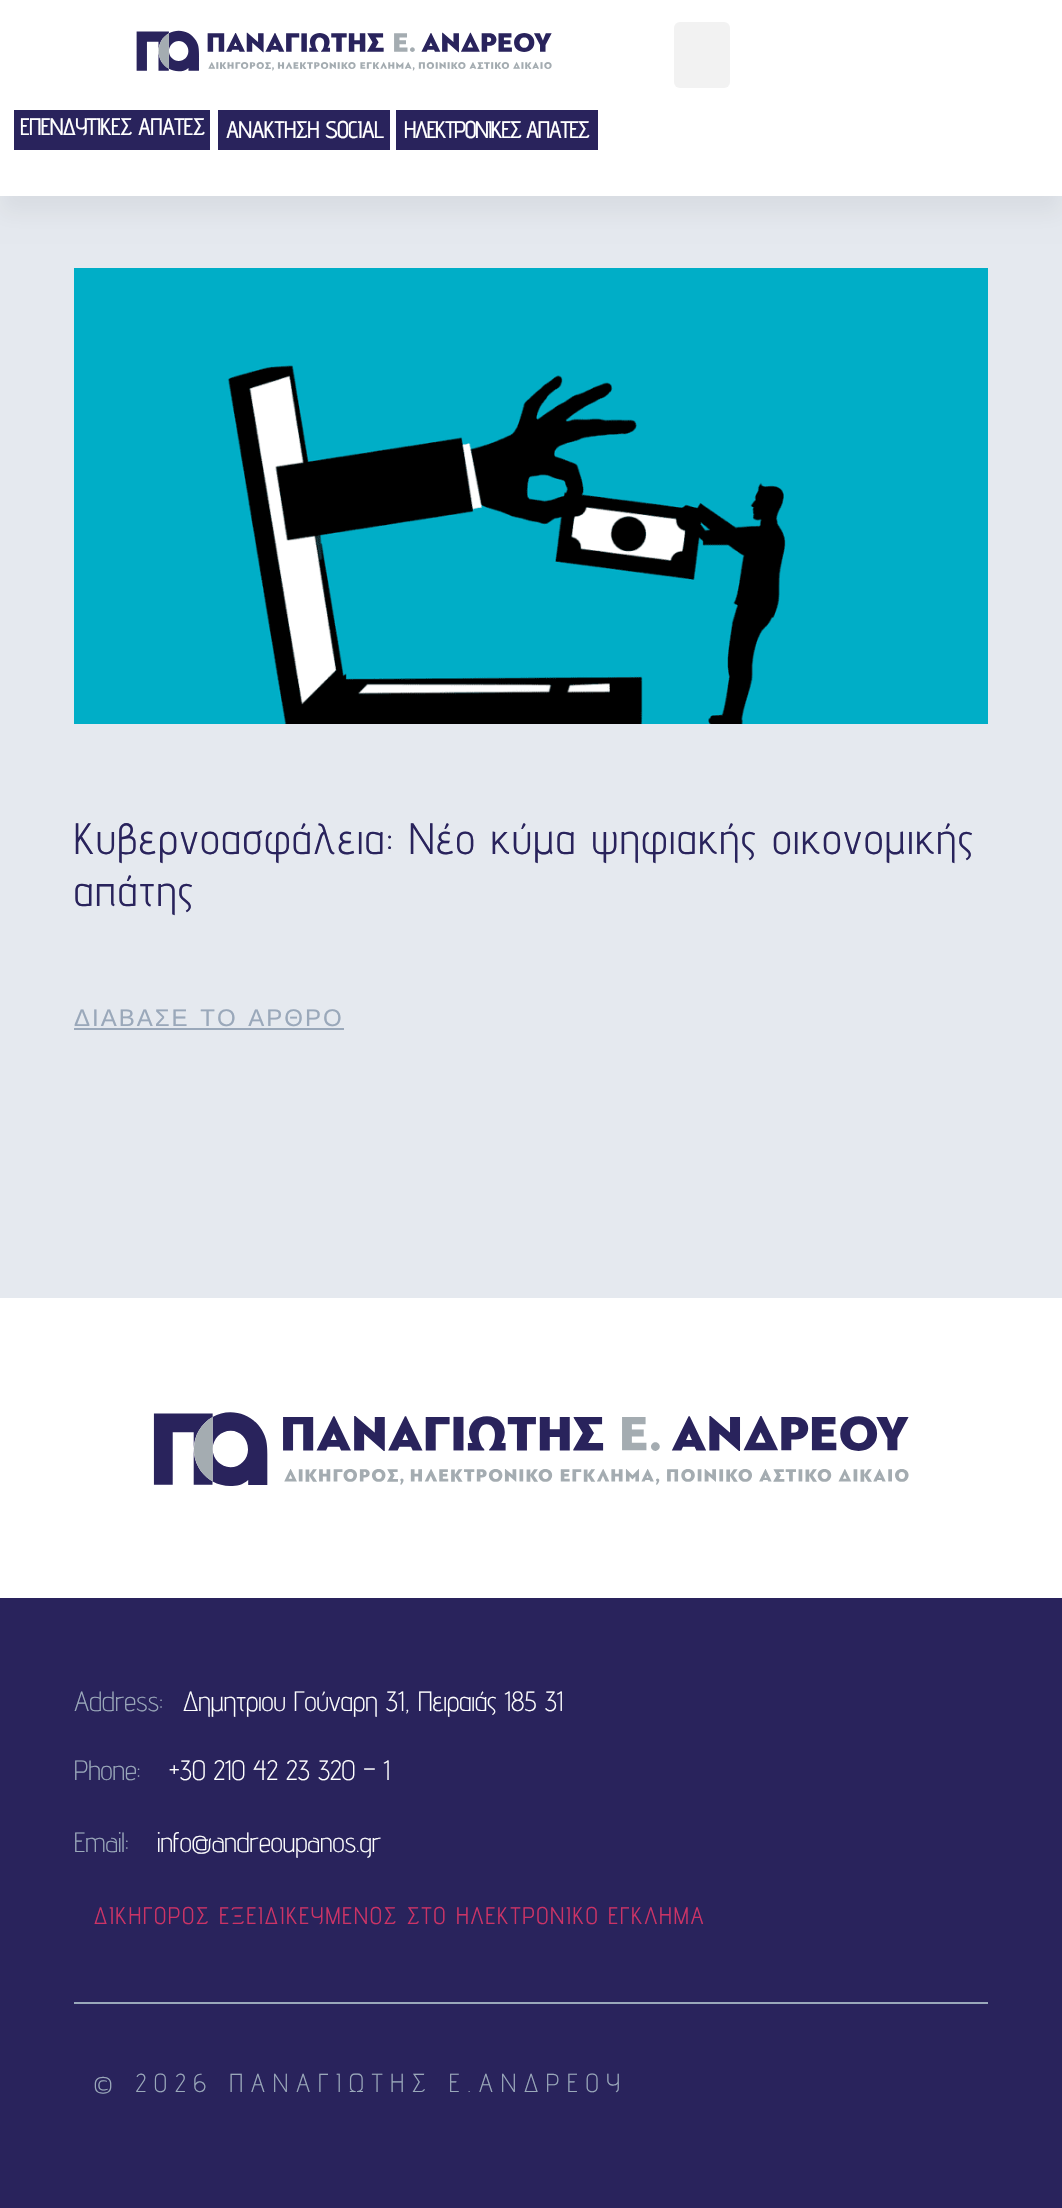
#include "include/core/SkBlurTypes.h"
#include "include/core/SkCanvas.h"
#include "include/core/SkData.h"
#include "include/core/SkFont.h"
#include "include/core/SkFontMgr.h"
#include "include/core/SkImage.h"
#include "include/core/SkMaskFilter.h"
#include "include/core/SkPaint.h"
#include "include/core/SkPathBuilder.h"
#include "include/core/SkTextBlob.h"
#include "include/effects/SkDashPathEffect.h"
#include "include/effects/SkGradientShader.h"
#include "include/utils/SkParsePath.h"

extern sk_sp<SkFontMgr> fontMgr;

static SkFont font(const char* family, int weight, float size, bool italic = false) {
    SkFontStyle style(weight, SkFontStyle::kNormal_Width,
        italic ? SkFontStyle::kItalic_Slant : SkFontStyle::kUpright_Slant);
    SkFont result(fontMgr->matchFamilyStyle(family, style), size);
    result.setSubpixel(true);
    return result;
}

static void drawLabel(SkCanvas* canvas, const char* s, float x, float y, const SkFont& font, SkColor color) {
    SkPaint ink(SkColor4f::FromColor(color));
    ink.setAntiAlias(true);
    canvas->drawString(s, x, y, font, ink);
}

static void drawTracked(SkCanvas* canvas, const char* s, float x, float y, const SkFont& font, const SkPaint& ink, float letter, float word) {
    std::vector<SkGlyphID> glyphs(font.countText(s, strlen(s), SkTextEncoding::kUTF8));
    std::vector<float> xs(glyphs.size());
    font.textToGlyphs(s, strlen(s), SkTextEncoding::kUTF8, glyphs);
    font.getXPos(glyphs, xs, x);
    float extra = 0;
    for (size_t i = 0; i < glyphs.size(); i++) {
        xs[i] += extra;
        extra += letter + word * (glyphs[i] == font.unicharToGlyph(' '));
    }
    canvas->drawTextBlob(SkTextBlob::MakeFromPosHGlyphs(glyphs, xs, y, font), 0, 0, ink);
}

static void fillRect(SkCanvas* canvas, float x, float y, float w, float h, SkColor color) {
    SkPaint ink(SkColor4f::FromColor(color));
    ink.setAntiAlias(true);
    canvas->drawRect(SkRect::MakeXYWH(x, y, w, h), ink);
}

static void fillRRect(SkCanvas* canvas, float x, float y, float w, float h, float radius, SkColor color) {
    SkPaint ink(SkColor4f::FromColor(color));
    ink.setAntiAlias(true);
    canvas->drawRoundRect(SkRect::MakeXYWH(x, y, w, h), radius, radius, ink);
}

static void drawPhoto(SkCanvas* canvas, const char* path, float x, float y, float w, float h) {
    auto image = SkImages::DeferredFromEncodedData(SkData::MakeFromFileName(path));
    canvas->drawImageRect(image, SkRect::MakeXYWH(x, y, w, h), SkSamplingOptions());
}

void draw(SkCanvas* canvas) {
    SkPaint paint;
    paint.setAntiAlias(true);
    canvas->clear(0xFFE5E9EF);
    paint.setColor(0x0D000000);
    paint.setMaskFilter(SkMaskFilter::MakeBlur(kNormal_SkBlurStyle, 10));
    canvas->drawRect(SkRect::MakeXYWH(0, 18, 1062, 196), paint);
    paint.setMaskFilter(nullptr);
    fillRect(canvas, 0, 0, 1062, 196, 0xFFFFFFFF);
    drawPhoto(canvas, "assets/img1.png", 136, 30, 416, 42);
    fillRRect(canvas, 674, 22, 56, 66, 6, 0xFFF2F2F2);
    fillRect(canvas, 14, 110, 196, 40, 0xFF29235C);
    SkFont font1 = font("Advent Pro", 500, 24);
    paint.setColor(0xFFFFFFFF);
    drawTracked(canvas, "ΕΠΕΝΔΥΤΙΚΕΣ ΑΠΑΤΕΣ", 20, 135, font1, paint, -0.75f, 0);
    fillRect(canvas, 218, 110, 172, 40, 0xFF29235C);
    drawTracked(canvas, "ΑΝΑΚΤΗΣΗ SOCIAL", 226, 138, font1, paint, -0.75f, 0);
    fillRect(canvas, 396, 110, 202, 40, 0xFF29235C);
    drawTracked(canvas, "ΗΛΕΚΤΡΟΝΙΚΕΣ ΑΠΑΤΕΣ", 404, 138, font1, paint, -1.4f, 0);
    drawPhoto(canvas, "assets/img2.png", 74, 268, 914, 456);
    SkFont font2 = font("Advent Pro", 400, 44);
    paint.setColor(0xFF29235C);
    drawTracked(canvas, "Κυβερνοασφάλεια: Νέο κύμα ψηφιακής οικονομικής", 74, 854, font2, paint, 2, 0);
    drawTracked(canvas, "απάτης", 74, 906, font2, paint, 2, 0);
    SkFont font3 = font("Liberation Sans", 400, 24);
    paint.setColor(0xFF9AA8BA);
    drawTracked(canvas, "ΔΙΑΒΑΣΕ ΤΟ ΑΡΘΡΟ", 74, 1026, font3, paint, 2, 2);
    fillRect(canvas, 74, 1028, 270, 2, 0xFF9AA8BA);
    fillRect(canvas, 0, 1298, 1062, 300, 0xFFFFFFFF);
    drawPhoto(canvas, "assets/img3.png", 153, 1412, 756, 74);
    fillRect(canvas, 0, 1598, 1062, 610, 0xFF29235C);
    SkFont font4 = font("Advent Pro", 300, 28);
    drawLabel(canvas, "Address:", 74, 1711, font4, 0xFF9AA8BA);
    drawLabel(canvas, "Δημητριου Γούναρη 31, Πειραιάς 185 31", 183, 1711, font4, 0xFFFFFFFF);
    drawLabel(canvas, "Phone:", 74, 1780, font4, 0xFF9AA8BA);
    drawLabel(canvas, "+30 210 42 23 320 – 1", 169, 1780, font4, 0xFFFFFFFF);
    drawLabel(canvas, "Email:", 74, 1852, font4, 0xFF9AA8BA);
    drawLabel(canvas, "info@andreoupanos.gr", 157, 1852, font4, 0xFFFFFFFF);
    SkFont font5 = font("Advent Pro", 400, 24);
    paint.setColor(0xFFCC3366);
    drawTracked(canvas, "ΔΙΚΗΓΟΡΟΣ ΕΞΕΙΔΙΚΕΥΜΕΝΟΣ ΣΤΟ ΗΛΕΚΤΡΟΝΙΚΟ ΕΓΚΛΗΜΑ", 94, 1924, font5, paint, 2, 0);
    fillRect(canvas, 74, 2002, 914, 2, 0xFF9AA8BA);
    SkFont font6 = font("Advent Pro", 300, 26);
    paint.setColor(0xFF9AA8BA);
    drawTracked(canvas, "© 2026 ΠΑΝΑΓΙΩΤΗΣ Ε.ΑΝΔΡΕΟΥ", 94, 2092, font6, paint, 8, 0);
}
